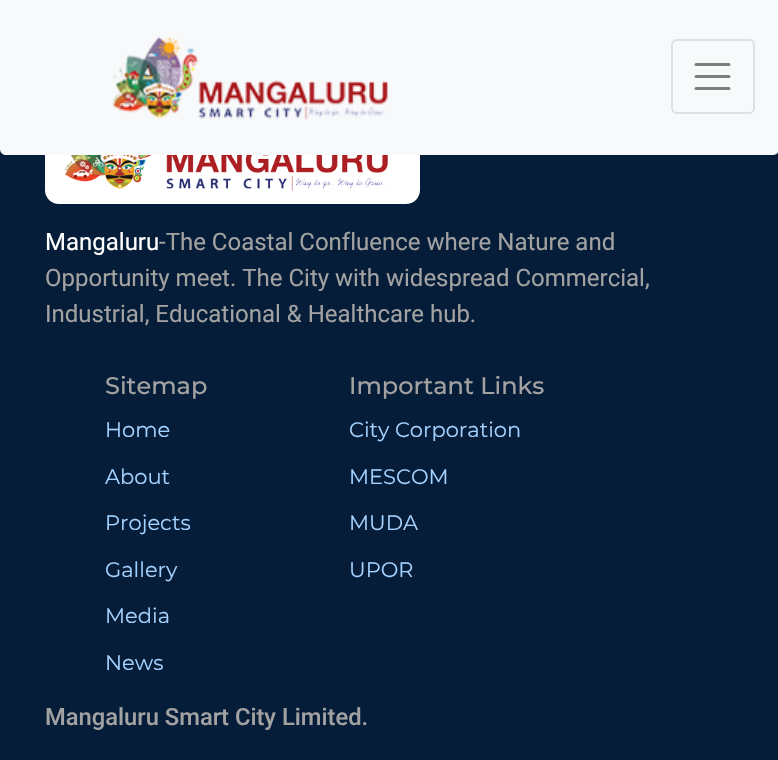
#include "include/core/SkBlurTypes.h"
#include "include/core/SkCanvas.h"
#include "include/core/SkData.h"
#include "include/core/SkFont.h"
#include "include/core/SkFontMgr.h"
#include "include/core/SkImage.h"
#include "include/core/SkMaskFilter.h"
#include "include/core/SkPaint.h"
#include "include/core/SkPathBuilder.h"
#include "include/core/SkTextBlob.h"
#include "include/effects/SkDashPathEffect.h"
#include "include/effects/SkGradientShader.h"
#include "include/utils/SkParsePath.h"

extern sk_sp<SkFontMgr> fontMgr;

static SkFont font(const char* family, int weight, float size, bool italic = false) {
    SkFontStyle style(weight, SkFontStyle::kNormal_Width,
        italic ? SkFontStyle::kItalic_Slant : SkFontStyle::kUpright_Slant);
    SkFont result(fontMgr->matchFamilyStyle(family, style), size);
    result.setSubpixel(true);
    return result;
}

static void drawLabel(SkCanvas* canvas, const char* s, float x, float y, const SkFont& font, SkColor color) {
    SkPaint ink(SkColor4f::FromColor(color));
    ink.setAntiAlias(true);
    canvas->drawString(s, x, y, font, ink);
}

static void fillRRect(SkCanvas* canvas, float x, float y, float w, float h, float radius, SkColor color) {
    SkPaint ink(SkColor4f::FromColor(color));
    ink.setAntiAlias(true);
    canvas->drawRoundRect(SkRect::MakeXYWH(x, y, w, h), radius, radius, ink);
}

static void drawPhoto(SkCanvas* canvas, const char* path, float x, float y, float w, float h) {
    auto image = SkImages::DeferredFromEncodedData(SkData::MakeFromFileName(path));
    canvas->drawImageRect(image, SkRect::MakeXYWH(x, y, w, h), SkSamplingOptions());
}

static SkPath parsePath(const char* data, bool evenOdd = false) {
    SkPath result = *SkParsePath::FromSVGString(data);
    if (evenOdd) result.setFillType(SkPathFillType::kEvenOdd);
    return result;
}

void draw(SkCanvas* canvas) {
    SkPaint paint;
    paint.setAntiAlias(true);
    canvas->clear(0xFF051D38);
    fillRRect(canvas, 45, 77, 375, 127, 14, 0xFFFFFFFF);
    paint.setColor(0xFFF8F9FA);
    canvas->drawPath(parsePath("M0 0H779V149C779 152.5 776.5 155 773 155H6C2.5 155 0 152.5 0 149Z"), paint);
    drawPhoto(canvas, "assets/img1.png", 112, 36, 277, 84);
    paint.setStroke(true);
    paint.setStrokeWidth(2);
    paint.setColor(0xFFDFE0E1);
    canvas->drawRoundRect(SkRect::MakeXYWH(672, 40, 82, 73), 5, 5, paint);
    paint.setStrokeWidth(3);
    paint.setStrokeCap(SkPaint::kRound_Cap);
    paint.setColor(0xFF7C7D7D);
    canvas->drawPath(parsePath("M696 64.5H729M696 76.5H729M696 88.5H729"), paint);
    drawPhoto(canvas, "assets/img2.png", 64, 155, 325, 36);
    SkFont font1 = font("Roboto", 400, 24);
    drawLabel(canvas, "Mangaluru", 45, 250, font1, 0xFFFFFFFF);
    drawLabel(canvas, "-The Coastal Confluence where Nature and", 159, 250, font1, 0xFFA2A2A2);
    drawLabel(canvas, "Opportunity meet. The City with widespread Commercial,", 45, 286, font1, 0xFFA2A2A2);
    drawLabel(canvas, "Industrial, Educational & Healthcare hub.", 45, 322, font1, 0xFFA2A2A2);
    SkFont font2 = font("Montserrat", 500, 24);
    drawLabel(canvas, "Sitemap", 105, 394, font2, 0xFFA2A2A2);
    SkFont font3 = font("Montserrat", 400, 21);
    drawLabel(canvas, "Home", 105, 437, font3, 0xFFA4D1FF);
    drawLabel(canvas, "About", 105, 484, font3, 0xFFA4D1FF);
    drawLabel(canvas, "Projects", 105, 530, font3, 0xFFA4D1FF);
    drawLabel(canvas, "Gallery", 105, 577, font3, 0xFFA4D1FF);
    drawLabel(canvas, "Media", 105, 623, font3, 0xFFA4D1FF);
    drawLabel(canvas, "News", 105, 670, font3, 0xFFA4D1FF);
    drawLabel(canvas, "Important Links", 349, 394, font2, 0xFFA2A2A2);
    drawLabel(canvas, "City Corporation", 349, 437, font3, 0xFFA4D1FF);
    drawLabel(canvas, "MESCOM", 349, 484, font3, 0xFFA4D1FF);
    drawLabel(canvas, "MUDA", 349, 530, font3, 0xFFA4D1FF);
    drawLabel(canvas, "UPOR", 349, 577, font3, 0xFFA4D1FF);
    SkFont font4 = font("Roboto", 500, 23.75f);
    drawLabel(canvas, "Mangaluru Smart City Limited.", 45, 725, font4, 0xFFA2A2A2);
}
